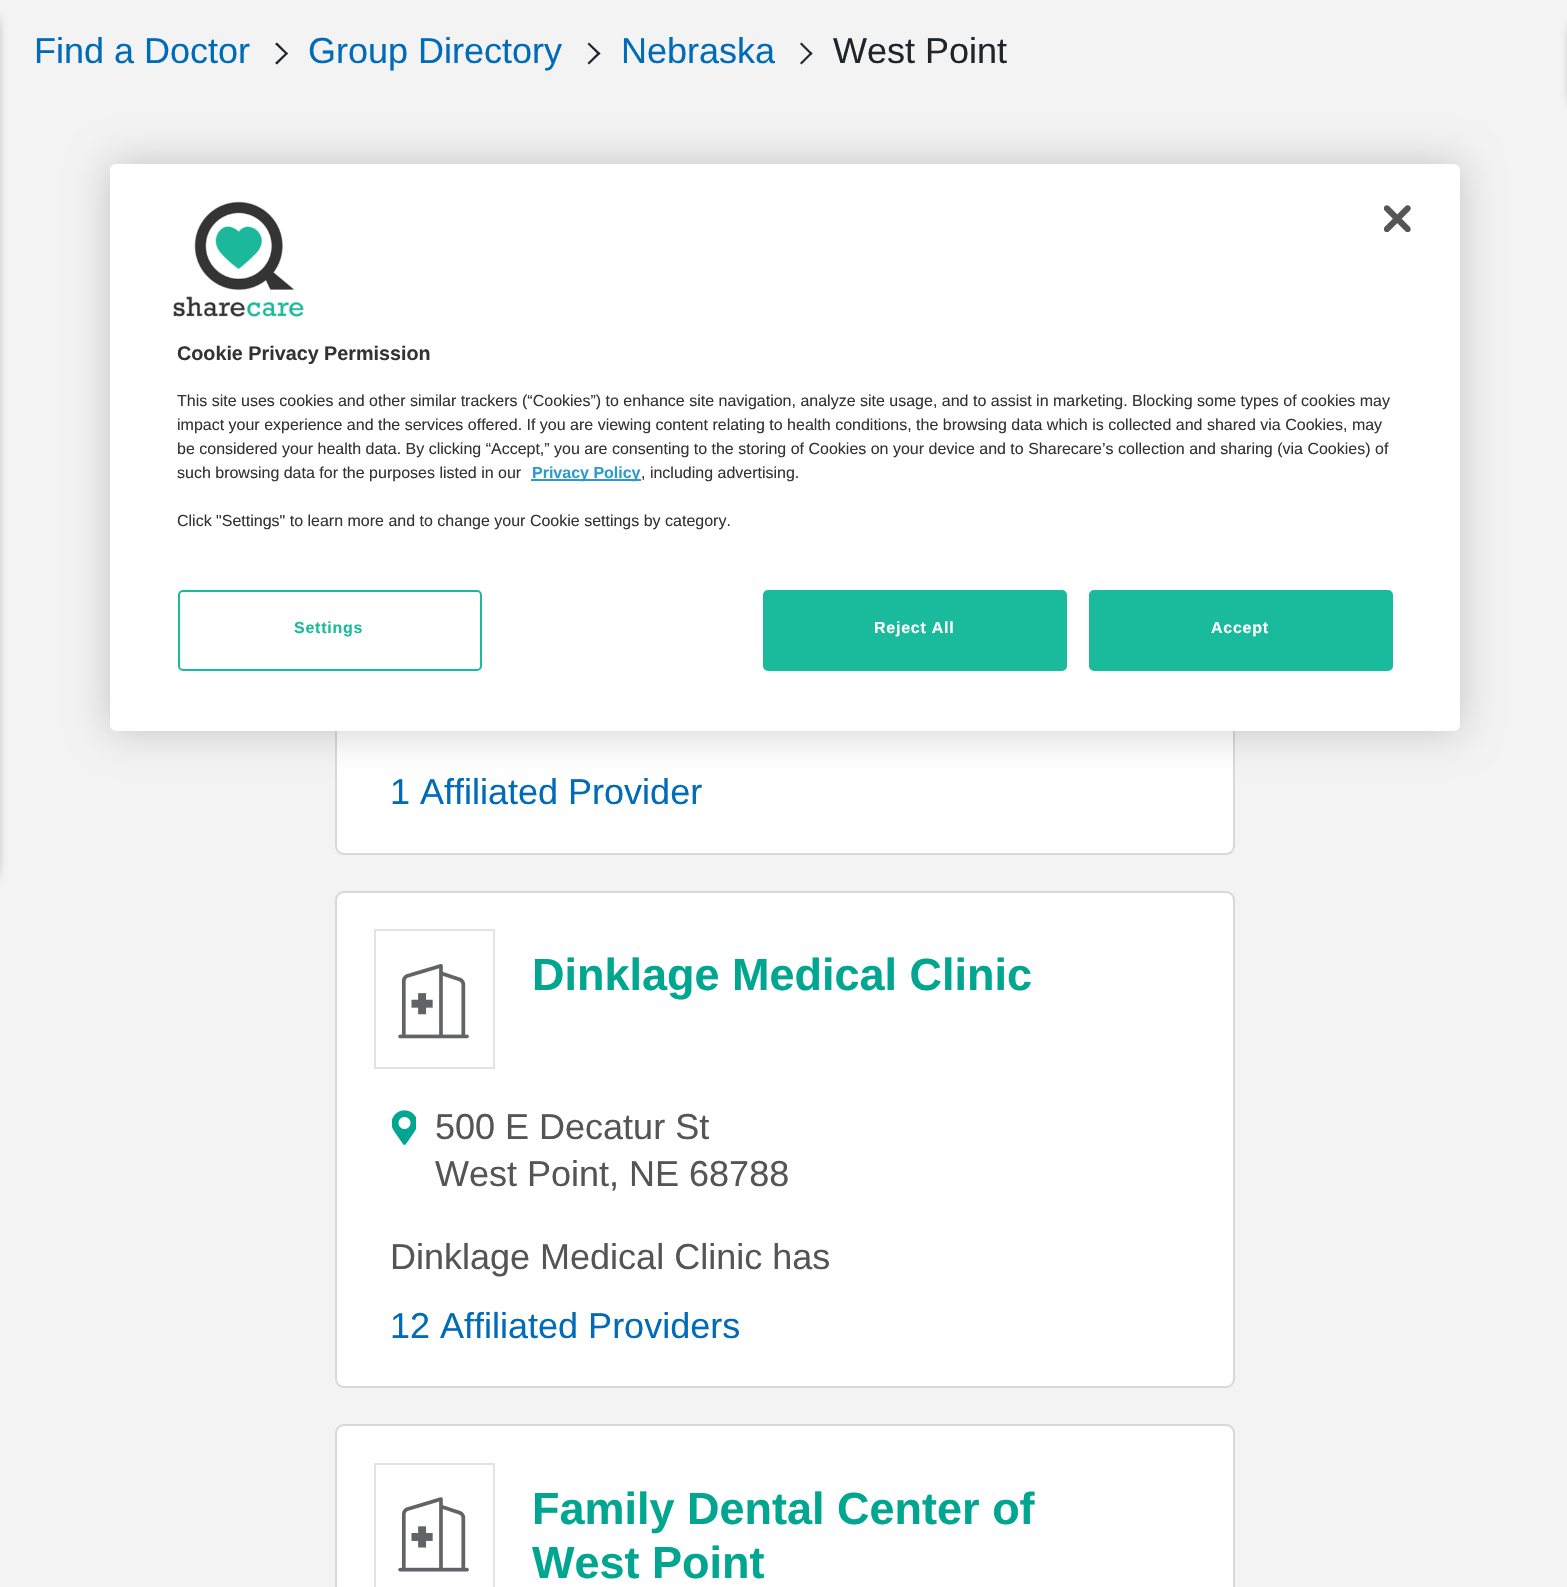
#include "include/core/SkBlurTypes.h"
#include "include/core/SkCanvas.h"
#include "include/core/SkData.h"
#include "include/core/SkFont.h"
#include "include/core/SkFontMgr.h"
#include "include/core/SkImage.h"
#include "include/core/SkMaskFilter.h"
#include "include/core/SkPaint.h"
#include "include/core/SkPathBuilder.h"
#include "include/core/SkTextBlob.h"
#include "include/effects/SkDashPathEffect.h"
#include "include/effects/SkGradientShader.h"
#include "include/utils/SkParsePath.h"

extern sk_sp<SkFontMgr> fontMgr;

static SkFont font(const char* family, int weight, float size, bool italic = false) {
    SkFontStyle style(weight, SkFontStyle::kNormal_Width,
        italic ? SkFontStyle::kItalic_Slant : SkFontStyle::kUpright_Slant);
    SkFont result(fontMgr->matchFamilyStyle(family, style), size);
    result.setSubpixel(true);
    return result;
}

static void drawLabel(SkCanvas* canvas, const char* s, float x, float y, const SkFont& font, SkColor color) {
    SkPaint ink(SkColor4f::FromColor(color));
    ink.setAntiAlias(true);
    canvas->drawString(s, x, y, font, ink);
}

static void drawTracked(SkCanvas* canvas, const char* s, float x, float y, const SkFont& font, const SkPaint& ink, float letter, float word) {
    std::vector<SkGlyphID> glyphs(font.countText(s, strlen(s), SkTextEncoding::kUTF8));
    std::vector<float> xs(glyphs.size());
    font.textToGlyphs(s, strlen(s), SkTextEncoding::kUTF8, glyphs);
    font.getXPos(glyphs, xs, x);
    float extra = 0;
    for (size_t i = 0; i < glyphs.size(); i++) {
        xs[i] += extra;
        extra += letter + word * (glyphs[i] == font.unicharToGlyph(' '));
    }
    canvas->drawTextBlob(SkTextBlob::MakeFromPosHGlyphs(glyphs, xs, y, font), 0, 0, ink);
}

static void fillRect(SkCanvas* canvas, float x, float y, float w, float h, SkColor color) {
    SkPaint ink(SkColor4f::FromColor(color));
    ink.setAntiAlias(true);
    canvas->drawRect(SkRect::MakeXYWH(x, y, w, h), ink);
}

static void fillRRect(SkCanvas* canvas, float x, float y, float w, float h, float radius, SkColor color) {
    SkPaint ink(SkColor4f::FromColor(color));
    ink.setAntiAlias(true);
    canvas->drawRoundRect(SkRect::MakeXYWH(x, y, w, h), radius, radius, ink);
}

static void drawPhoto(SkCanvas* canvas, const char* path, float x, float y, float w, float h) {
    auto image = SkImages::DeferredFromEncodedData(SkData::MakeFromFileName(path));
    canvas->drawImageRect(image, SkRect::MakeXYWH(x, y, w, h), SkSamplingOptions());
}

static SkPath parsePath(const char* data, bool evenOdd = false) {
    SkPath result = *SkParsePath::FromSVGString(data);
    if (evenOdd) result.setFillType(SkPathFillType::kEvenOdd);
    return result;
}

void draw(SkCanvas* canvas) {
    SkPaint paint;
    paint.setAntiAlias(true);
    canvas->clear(0xFFF3F3F3);
    paint.setColor(0x33000000);
    paint.setMaskFilter(SkMaskFilter::MakeBlur(kNormal_SkBlurStyle, 3.5f));
    canvas->drawRoundRect(SkRect::MakeXYWH(-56, 2, 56, 889), 45, 45, paint);
    paint.setMaskFilter(nullptr);
    paint.setMaskFilter(SkMaskFilter::MakeBlur(kNormal_SkBlurStyle, 3.5f));
    canvas->drawRoundRect(SkRect::MakeXYWH(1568, 2, 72, 124), 62, 62, paint);
    paint.setMaskFilter(nullptr);
    SkFont font1 = font("Liberation Sans", 400, 36);
    drawLabel(canvas, "Find a Doctor", 34, 63, font1, 0xFF006BB8);
    paint.setColor(0xFF212529);
    canvas->drawPath(parsePath("M277 42.5L288 53.5L286.5 55L275 44Z"), paint);
    canvas->drawPath(parsePath("M286.5 52L288 53.5L277 64.5L275 63Z"), paint);
    drawLabel(canvas, "Group Directory", 308, 63, font1, 0xFF006BB8);
    canvas->drawPath(parsePath("M589 42.5L600.5 53.5L598.5 55L587.5 44Z"), paint);
    canvas->drawPath(parsePath("M598.5 52L600.5 53.5L589 64.5L587.5 63Z"), paint);
    drawLabel(canvas, "Nebraska", 621, 63, font1, 0xFF006BB8);
    canvas->drawPath(parsePath("M801.5 42.5L812.5 53.5L811 55L800 44Z"), paint);
    canvas->drawPath(parsePath("M811 52L812.5 53.5L801.5 64.5L800 63Z"), paint);
    drawLabel(canvas, "West Point", 833, 63, font1, 0xFF212529);
    paint.setColor(0xFFFFFFFF);
    canvas->drawRoundRect(SkRect::MakeXYWH(336, 343, 898, 511), 8, 8, paint);
    paint.setStroke(true);
    paint.setStrokeWidth(2);
    paint.setColor(0xFFD8D8D8);
    canvas->drawRoundRect(SkRect::MakeXYWH(336, 343, 898, 511), 8, 8, paint);
    drawLabel(canvas, "1 Affiliated Provider", 390, 804, font1, 0xFF006BB8);
    paint.setStroke(false);
    paint.setColor(0xFFFFFFFF);
    canvas->drawRoundRect(SkRect::MakeXYWH(336, 892, 898, 495), 8, 8, paint);
    paint.setStroke(true);
    paint.setColor(0xFFD8D8D8);
    canvas->drawRoundRect(SkRect::MakeXYWH(336, 892, 898, 495), 8, 8, paint);
    paint.setColor(0xFFE3E3E3);
    canvas->drawRect(SkRect::MakeXYWH(375, 930, 119, 138), paint);
    drawPhoto(canvas, "assets/img1.png", 398, 964, 71, 75);
    SkFont font2 = font("Liberation Sans", 700, 45);
    drawLabel(canvas, "Dinklage Medical Clinic", 532, 990, font2, 0xFF00A690);
    drawPhoto(canvas, "assets/img2.png", 392, 1110, 24, 35);
    drawLabel(canvas, "500 E Decatur St", 435, 1139, font1, 0xFF555555);
    drawLabel(canvas, "West Point, NE 68788", 435, 1186, font1, 0xFF555555);
    drawLabel(canvas, "Dinklage Medical Clinic has", 390, 1269, font1, 0xFF555555);
    drawLabel(canvas, "12 Affiliated Providers", 390, 1338, font1, 0xFF006BB8);
    paint.setStroke(false);
    paint.setColor(0xFFFFFFFF);
    canvas->drawRoundRect(SkRect::MakeXYWH(336, 1425, 898, 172), 8, 8, paint);
    paint.setStroke(true);
    paint.setColor(0xFFD8D8D8);
    canvas->drawRoundRect(SkRect::MakeXYWH(336, 1425, 898, 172), 8, 8, paint);
    paint.setColor(0xFFE3E3E3);
    canvas->drawRect(SkRect::MakeXYWH(375, 1464, 119, 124), paint);
    drawPhoto(canvas, "assets/img3.png", 398, 1497, 71, 75);
    drawLabel(canvas, "Family Dental Center of", 532, 1524, font2, 0xFF00A690);
    drawLabel(canvas, "West Point", 532, 1578, font2, 0xFF00A690);
    paint.setStroke(false);
    paint.setColor(0x33000000);
    paint.setMaskFilter(SkMaskFilter::MakeBlur(kNormal_SkBlurStyle, 20));
    canvas->drawRoundRect(SkRect::MakeXYWH(110, 164, 1350, 567), 6, 6, paint);
    paint.setMaskFilter(nullptr);
    fillRRect(canvas, 110, 164, 1350, 567, 6, 0xFFFFFFFF);
    drawPhoto(canvas, "assets/img4.png", 1384, 205, 27, 27);
    drawPhoto(canvas, "assets/img5.png", 173, 201, 131, 116);
    SkFont font3 = font("Liberation Sans", 700, 19.75f);
    drawLabel(canvas, "Cookie Privacy Permission", 177, 360, font3, 0xFF333333);
    SkFont font4 = font("Liberation Sans", 400, 16);
    drawLabel(canvas, "This site uses cookies and other similar trackers (“Cookies”) to enhance site navigation, analyze site usage, and to assist in marketing. Blocking some types of cookies may", 177, 406, font4, 0xFF333333);
    drawLabel(canvas, "impact your experience and the services offered. If you are viewing content relating to health conditions, the browsing data which is collected and shared via Cookies, may", 177, 430, font4, 0xFF333333);
    drawLabel(canvas, "be considered your health data. By clicking “Accept,” you are consenting to the storing of Cookies on your device and to Sharecare’s collection and sharing (via Cookies) of", 177, 454, font4, 0xFF333333);
    drawLabel(canvas, "such browsing data for the purposes listed in our", 177, 478, font4, 0xFF333333);
    fillRect(canvas, 531, 479, 110, 2, 0xFF2C9ACC);
    SkFont font5 = font("Liberation Sans", 700, 16);
    drawLabel(canvas, "Privacy Policy", 532, 478, font5, 0xFF2C9ACC);
    drawLabel(canvas, ", including advertising.", 641, 478, font4, 0xFF333333);
    drawLabel(canvas, "Click \"Settings\" to learn more and to change your Cookie settings by category.", 177, 526, font4, 0xFF333333);
    paint.setStroke(true);
    paint.setColor(0xFF1ABA9C);
    canvas->drawRoundRect(SkRect::MakeXYWH(179, 591, 302, 79), 4, 4, paint);
    paint.setStroke(false);
    drawTracked(canvas, "Settings", 294, 633, font5, paint, 0.75f, 0);
    canvas->drawRoundRect(SkRect::MakeXYWH(764, 591, 302, 79), 4, 4, paint);
    paint.setStroke(true);
    canvas->drawRoundRect(SkRect::MakeXYWH(764, 591, 302, 79), 4, 4, paint);
    paint.setStroke(false);
    paint.setColor(0xFFFFFFFF);
    drawTracked(canvas, "Reject All", 874, 633, font5, paint, 0.75f, 0);
    paint.setColor(0xFF1ABA9C);
    canvas->drawRoundRect(SkRect::MakeXYWH(1090, 591, 302, 79), 4, 4, paint);
    paint.setStroke(true);
    canvas->drawRoundRect(SkRect::MakeXYWH(1090, 591, 302, 79), 4, 4, paint);
    paint.setStroke(false);
    paint.setColor(0xFFFFFFFF);
    drawTracked(canvas, "Accept", 1211, 633, font5, paint, 0.75f, 0);
}
